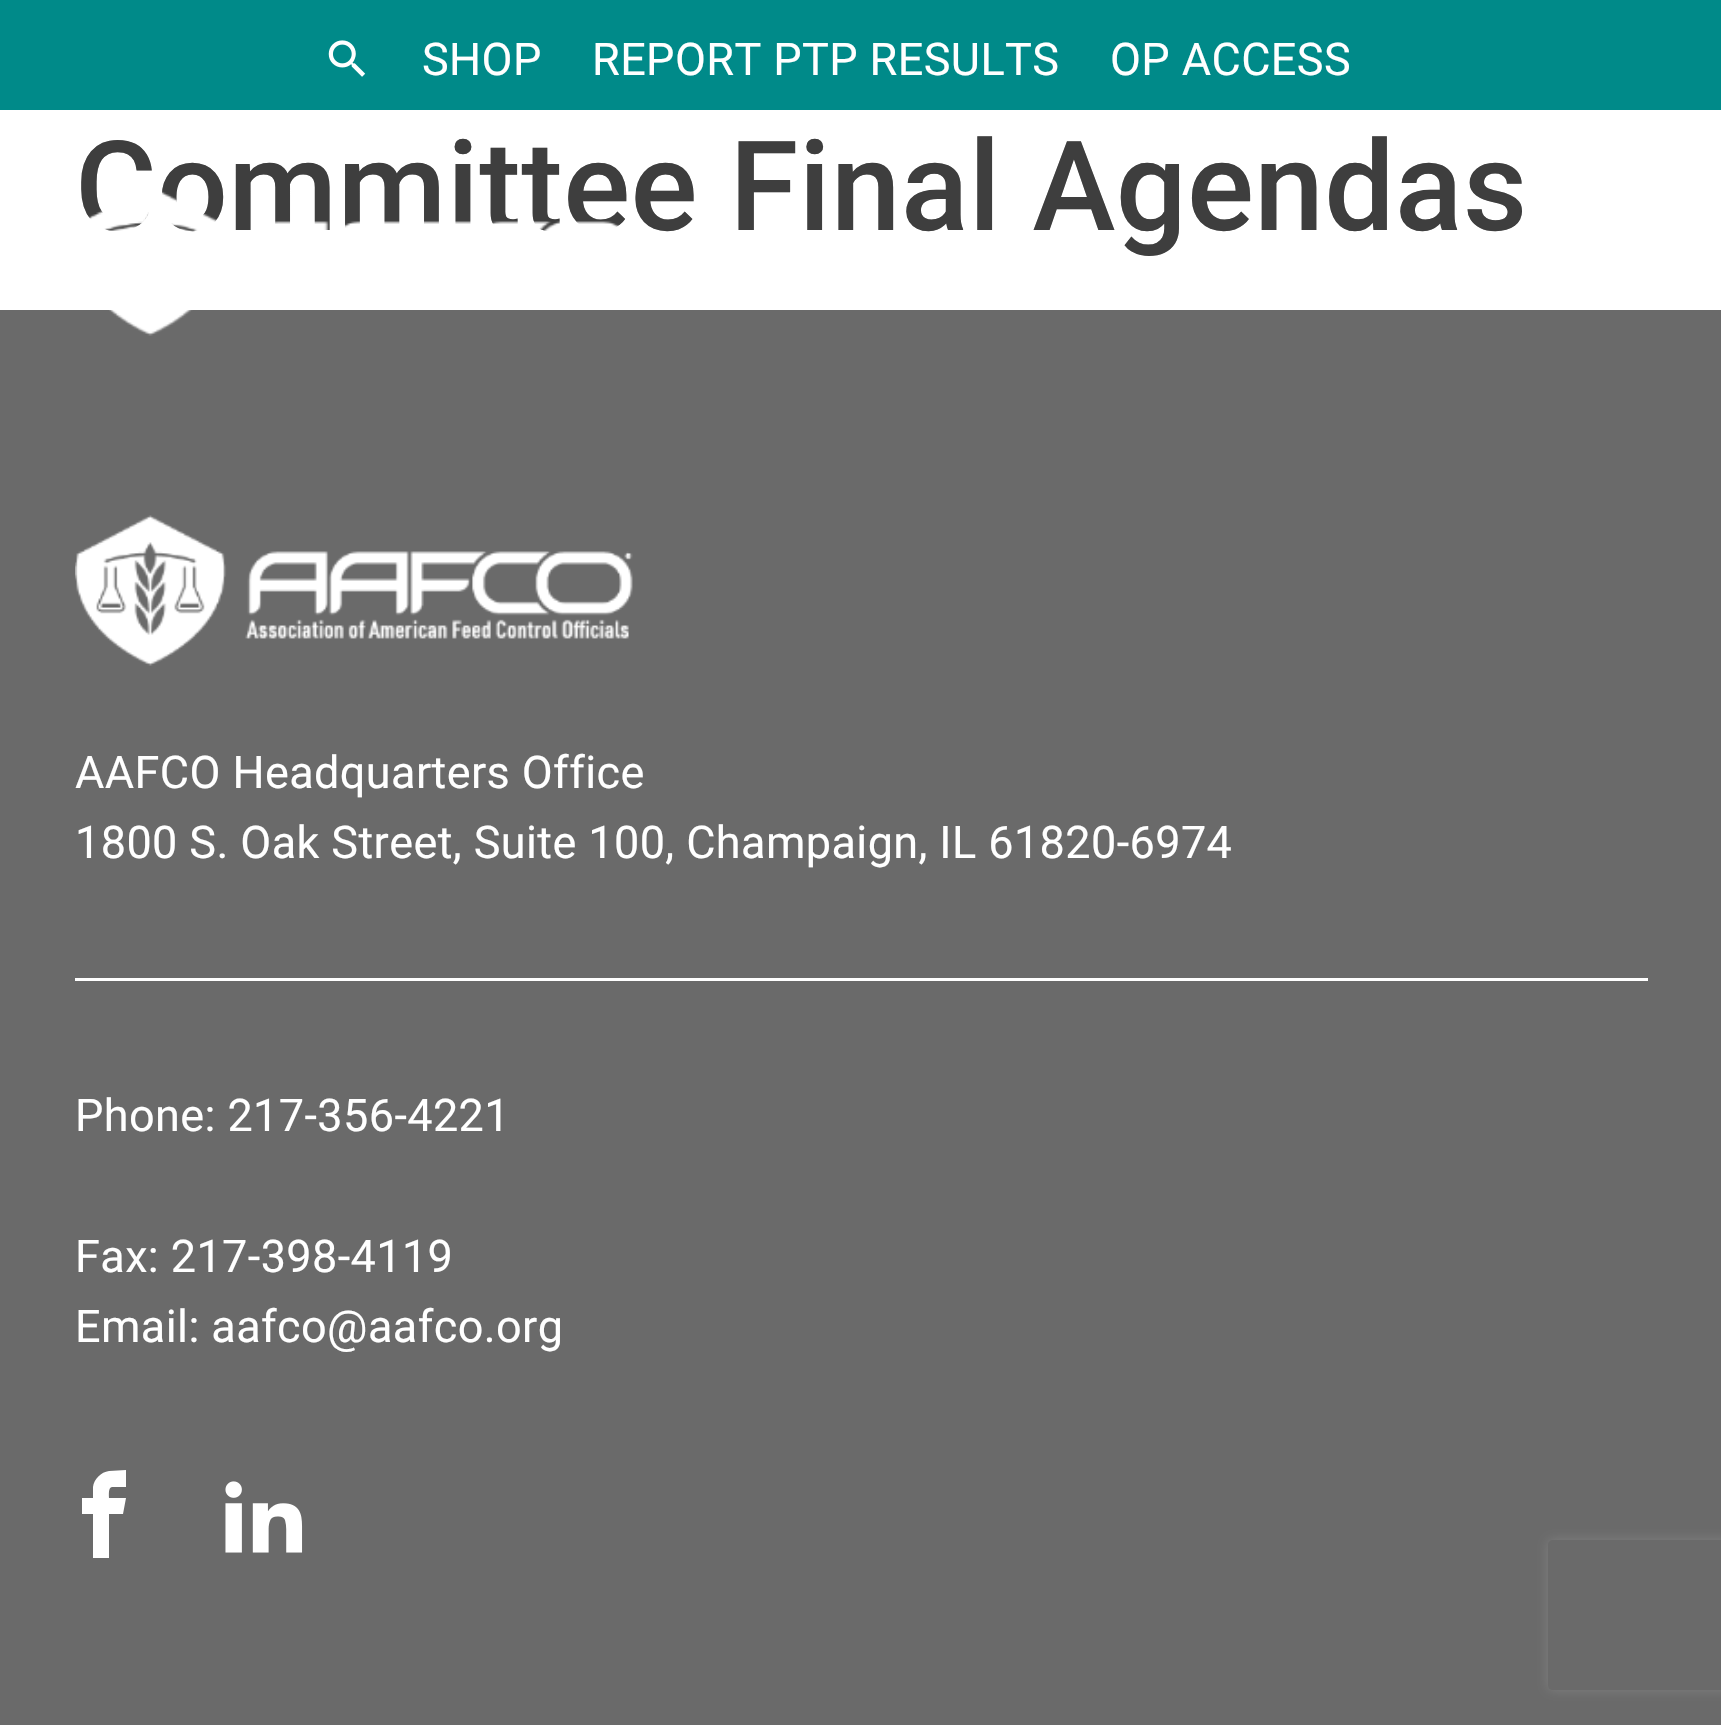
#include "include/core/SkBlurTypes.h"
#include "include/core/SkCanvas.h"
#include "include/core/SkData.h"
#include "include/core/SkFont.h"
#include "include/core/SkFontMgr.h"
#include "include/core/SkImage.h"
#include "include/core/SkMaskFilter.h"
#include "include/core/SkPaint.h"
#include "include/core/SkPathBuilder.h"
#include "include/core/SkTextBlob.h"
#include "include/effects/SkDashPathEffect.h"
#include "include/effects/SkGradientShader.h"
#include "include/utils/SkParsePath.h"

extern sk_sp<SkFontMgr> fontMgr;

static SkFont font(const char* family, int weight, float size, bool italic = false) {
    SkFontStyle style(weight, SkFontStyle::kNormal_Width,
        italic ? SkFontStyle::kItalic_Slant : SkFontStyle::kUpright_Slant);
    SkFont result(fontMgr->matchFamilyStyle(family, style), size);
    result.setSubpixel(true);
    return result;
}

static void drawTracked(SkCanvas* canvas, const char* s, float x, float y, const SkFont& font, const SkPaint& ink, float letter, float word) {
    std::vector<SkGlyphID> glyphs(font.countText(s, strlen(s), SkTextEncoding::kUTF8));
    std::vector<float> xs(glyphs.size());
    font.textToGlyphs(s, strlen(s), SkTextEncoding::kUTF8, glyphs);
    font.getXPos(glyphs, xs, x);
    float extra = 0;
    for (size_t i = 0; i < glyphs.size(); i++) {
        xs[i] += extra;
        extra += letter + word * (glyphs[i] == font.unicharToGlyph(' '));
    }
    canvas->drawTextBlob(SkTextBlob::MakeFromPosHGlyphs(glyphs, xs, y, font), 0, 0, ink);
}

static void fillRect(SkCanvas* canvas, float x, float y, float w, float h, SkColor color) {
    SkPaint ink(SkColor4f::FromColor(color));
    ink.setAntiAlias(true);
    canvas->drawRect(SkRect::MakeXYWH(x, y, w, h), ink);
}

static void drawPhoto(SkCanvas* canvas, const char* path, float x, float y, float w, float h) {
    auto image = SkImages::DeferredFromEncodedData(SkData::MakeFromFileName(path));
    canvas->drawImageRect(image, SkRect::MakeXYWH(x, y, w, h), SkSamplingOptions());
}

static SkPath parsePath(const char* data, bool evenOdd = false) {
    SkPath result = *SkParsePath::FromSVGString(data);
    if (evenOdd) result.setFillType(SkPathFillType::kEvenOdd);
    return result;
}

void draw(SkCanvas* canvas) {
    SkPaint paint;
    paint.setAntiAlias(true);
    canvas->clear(0xFFFFFFFF);
    fillRect(canvas, 0, 0, 1721, 110, 0xFF008A89);
    drawPhoto(canvas, "assets/img1.png", 328, 40, 38, 37);
    SkFont font1 = font("Roboto", 400, 45);
    paint.setColor(0xFFFFFFFF);
    drawTracked(canvas, "SHOP", 422, 75, font1, paint, 0.4f, 0);
    drawTracked(canvas, "REPORT PTP RESULTS", 592, 75, font1, paint, 0.4f, 0);
    drawTracked(canvas, "OP ACCESS", 1110, 75, font1, paint, 0.4f, 0);
    SkFont font2 = font("Roboto", 500, 125);
    paint.setColor(0xFF3E3E3E);
    drawTracked(canvas, "Committee Final Agendas", 75, 230, font2, paint, 0.4f, 0);
    fillRect(canvas, 0, 310, 1721, 1415, 0xFF6A6A6A);
    drawPhoto(canvas, "assets/img2.png", 89, 191, 530, 145);
    drawPhoto(canvas, "assets/img3.png", 75, 515, 558, 151);
    paint.setColor(0xFFFFFFFF);
    drawTracked(canvas, "AAFCO Headquarters Office", 75, 788, font1, paint, 0.4f, 0);
    drawTracked(canvas, "1800 S. Oak Street, Suite 100, Champaign, IL 61820-6974", 75, 858, font1, paint, 0.4f, 0);
    fillRect(canvas, 75, 978, 1573, 3, 0xFFFFFFFF);
    drawTracked(canvas, "Phone: 217-356-4221", 75, 1131, font1, paint, 0.4f, 0);
    drawTracked(canvas, "Fax: 217-398-4119", 75, 1272, font1, paint, 0.4f, 0);
    drawTracked(canvas, "Email: aafco@aafco.org", 75, 1342, font1, paint, 0.4f, 0);
    canvas->drawPath(parsePath("M112 1487H126V1470L109 1471C101 1472 94 1479 93 1487V1498H82V1514H93V1558H109V1514H123L126 1498H109C109 1496 108 1487 112 1487Z"), paint);
    drawPhoto(canvas, "assets/img4.png", 225, 1481, 78, 72);
    canvas->save();
    canvas->clipPath(parsePath("M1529 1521H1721V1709H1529ZM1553 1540H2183C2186 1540 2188 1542 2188 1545V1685C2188 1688 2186 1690 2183 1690H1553C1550 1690 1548 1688 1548 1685V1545C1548 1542 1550 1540 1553 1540Z", true), true);
    paint.setColor(0xFF808080);
    paint.setMaskFilter(SkMaskFilter::MakeBlur(kNormal_SkBlurStyle, 6));
    canvas->drawRoundRect(SkRect::MakeXYWH(1548, 1540, 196, 150), 5, 5, paint);
    paint.setMaskFilter(nullptr);
    canvas->restore();
}
